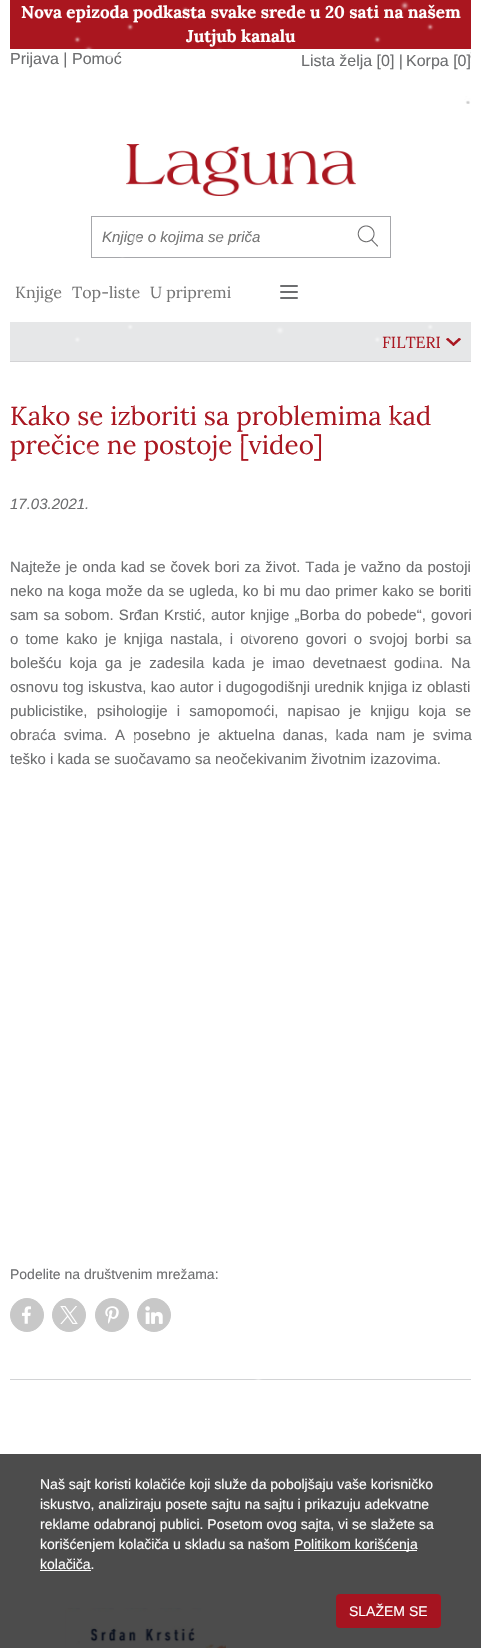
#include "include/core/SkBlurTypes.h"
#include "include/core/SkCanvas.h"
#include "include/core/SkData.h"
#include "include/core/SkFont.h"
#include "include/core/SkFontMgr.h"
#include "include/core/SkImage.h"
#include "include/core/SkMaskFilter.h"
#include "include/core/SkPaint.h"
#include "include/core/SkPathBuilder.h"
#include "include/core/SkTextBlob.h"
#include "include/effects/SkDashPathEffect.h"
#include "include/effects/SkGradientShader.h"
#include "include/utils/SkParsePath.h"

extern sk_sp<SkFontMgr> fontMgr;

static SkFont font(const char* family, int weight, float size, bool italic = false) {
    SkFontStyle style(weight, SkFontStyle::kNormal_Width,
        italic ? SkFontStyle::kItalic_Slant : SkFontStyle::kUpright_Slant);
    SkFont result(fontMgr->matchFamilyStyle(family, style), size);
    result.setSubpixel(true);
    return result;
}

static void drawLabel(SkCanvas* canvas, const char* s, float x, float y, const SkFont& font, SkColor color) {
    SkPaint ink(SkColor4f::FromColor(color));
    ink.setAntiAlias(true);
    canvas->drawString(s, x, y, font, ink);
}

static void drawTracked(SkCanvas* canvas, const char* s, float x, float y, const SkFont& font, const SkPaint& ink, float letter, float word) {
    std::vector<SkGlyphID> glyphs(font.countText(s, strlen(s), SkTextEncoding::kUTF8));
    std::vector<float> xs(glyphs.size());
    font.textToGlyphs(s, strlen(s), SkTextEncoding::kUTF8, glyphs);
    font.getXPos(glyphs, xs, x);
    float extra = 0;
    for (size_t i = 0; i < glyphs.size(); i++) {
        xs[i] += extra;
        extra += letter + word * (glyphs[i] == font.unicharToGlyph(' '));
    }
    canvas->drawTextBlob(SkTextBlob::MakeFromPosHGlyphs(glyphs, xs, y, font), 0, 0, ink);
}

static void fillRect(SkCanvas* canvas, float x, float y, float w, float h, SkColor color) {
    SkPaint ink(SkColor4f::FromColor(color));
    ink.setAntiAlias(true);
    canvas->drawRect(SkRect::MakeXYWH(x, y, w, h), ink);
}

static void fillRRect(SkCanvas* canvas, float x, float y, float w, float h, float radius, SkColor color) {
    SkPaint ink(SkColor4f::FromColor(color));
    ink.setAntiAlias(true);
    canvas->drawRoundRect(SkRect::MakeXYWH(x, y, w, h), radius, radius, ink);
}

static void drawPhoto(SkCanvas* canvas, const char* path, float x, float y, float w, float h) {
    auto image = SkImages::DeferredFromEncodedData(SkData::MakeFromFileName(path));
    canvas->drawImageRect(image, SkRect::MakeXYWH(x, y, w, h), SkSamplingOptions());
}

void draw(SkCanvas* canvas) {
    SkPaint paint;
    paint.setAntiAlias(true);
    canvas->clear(0xFFFFFFFF);
    drawPhoto(canvas, "assets/img2.png", 17, 49, 454, 55);
    fillRect(canvas, 10, 0, 461, 49, 0xFFAA161F);
    SkFont font1 = font("Lora", 700, 17);
    drawLabel(canvas, "Nova epizoda podkasta svake srede u 20 sati na našem", 21, 18, font1, 0xFFFFFFFF);
    drawLabel(canvas, "Jutjub kanalu", 186, 42, font1, 0xFFFFFFFF);
    SkFont font2 = font("Arimo", 400, 16);
    drawLabel(canvas, "Prijava | Pomoć", 10, 64, font2, 0xFF6D6E70);
    drawLabel(canvas, "Lista želja [0] |", 301, 66, font2, 0xFF6D6E70);
    drawLabel(canvas, "Korpa [0]", 406, 66, font2, 0xFF6D6E70);
    drawPhoto(canvas, "assets/img3.png", 126, 144, 230, 52);
    paint.setStroke(true);
    paint.setStrokeWidth(1);
    paint.setColor(0xFFA6A7AB);
    canvas->drawRect(SkRect::MakeXYWH(91.5f, 216.5f, 299, 41), paint);
    SkFont font3 = font("Arimo", 400, 15, true);
    drawLabel(canvas, "Knjige o kojima se priča", 102, 242, font3, 0xFF757575);
    drawPhoto(canvas, "assets/img4.png", 357, 225, 21, 22);
    fillRect(canvas, 10, 322, 461, 39, 0xFFE6E7E8);
    fillRect(canvas, 10, 361, 461, 1, 0xFFD3D3D5);
    drawPhoto(canvas, "assets/img5.png", 446, 338, 15, 8);
    SkFont font4 = font("Lora", 400, 16);
    drawLabel(canvas, "FILTERI", 382, 348, font4, 0xFFAA1721);
    SkFont font5 = font("Lora", 400, 26);
    drawLabel(canvas, "Kako se izboriti sa problemima kad", 10, 425, font5, 0xFFAA1721);
    drawLabel(canvas, "prečice ne postoje [video]", 10, 454, font5, 0xFFAA1721);
    drawLabel(canvas, "17.03.2021.", 10, 509, font3, 0xFF6D6E70);
    SkFont font6 = font("Arimo", 400, 15);
    paint.setStroke(false);
    paint.setColor(0xFF6D6E70);
    drawTracked(canvas, "Najteže je onda kad se čovek bori za život. Tada je važno da postoji", 10, 572, font6, paint, 0, 0.75f);
    drawTracked(canvas, "neko na koga može da se ugleda, ko bi mu dao primer kako se boriti", 10, 596, font6, paint, 0, 0.5f);
    drawTracked(canvas, "sam sa sobom. Srđan Krstić, autor knjige „Borba do pobede“, govori", 10, 620, font6, paint, 0, 1);
    drawTracked(canvas, "o tome kako je knjiga nastala, i otvoreno govori o svojoj borbi sa", 10, 644, font6, paint, 0, 3);
    drawTracked(canvas, "bolešću koja ga je zadesila kada je imao devetnaest godina. Na", 10, 668, font6, paint, 0, 3.75f);
    drawTracked(canvas, "osnovu tog iskustva, kao autor i dugogodišnji urednik knjiga iz oblasti", 10, 692, font6, paint, 0, 0.25f);
    drawTracked(canvas, "publicistike, psihologije i samopomoći, napisao je knjigu koja se", 10, 716, font6, paint, 0, 5);
    drawTracked(canvas, "obraća svima. A posebno je aktuelna danas, kada nam je svima", 10, 740, font6, paint, 0, 3.75f);
    drawLabel(canvas, "teško i kada se suočavamo sa neočekivanim životnim izazovima.", 10, 764, font6, 0xFF6D6E70);
    SkFont font7 = font("Arimo", 400, 14);
    drawLabel(canvas, "Podelite na društvenim mrežama:", 10, 1279, font7, 0xFF6D6E70);
    paint.setColor(0xFFC8C8C8);
    canvas->drawCircle(27, 1315, 16.5f, paint);
    paint.setStroke(true);
    canvas->drawCircle(27, 1315, 16.5f, paint);
    paint.setStroke(false);
    canvas->drawCircle(69, 1315, 16.5f, paint);
    paint.setStroke(true);
    canvas->drawCircle(69, 1315, 16.5f, paint);
    drawPhoto(canvas, "assets/img7.png", 60, 1306, 18, 18);
    paint.setStroke(false);
    canvas->drawCircle(112, 1315, 16.5f, paint);
    paint.setStroke(true);
    canvas->drawCircle(112, 1315, 16.5f, paint);
    drawPhoto(canvas, "assets/img8.png", 105, 1306, 14, 18);
    paint.setStroke(false);
    canvas->drawCircle(154, 1315, 16.5f, paint);
    paint.setStroke(true);
    canvas->drawCircle(154, 1315, 16.5f, paint);
    drawPhoto(canvas, "assets/img9.png", 145, 1306, 18, 18);
    fillRect(canvas, 10, 1379, 461, 1, 0xFFD2D3D5);
    drawPhoto(canvas, "assets/img10.png", 65, 1608, 161, 40);
    drawPhoto(canvas, "assets/img1.png", 36, 1, 434, 1633);
    drawLabel(canvas, "Knjige", 15, 298, font4, 0xFF757575);
    drawLabel(canvas, "Top-liste", 72, 298, font4, 0xFF757575);
    drawLabel(canvas, "U pripremi", 150, 298, font4, 0xFF757575);
    fillRRect(canvas, 280, 285, 18, 2, 1, 0xFF6D6E70);
    fillRRect(canvas, 280, 291, 18, 2, 1, 0xFF6D6E70);
    fillRRect(canvas, 280, 297, 18, 2, 1, 0xFF6D6E70);
    drawPhoto(canvas, "assets/img6.png", 22, 1306, 9, 18);
    fillRect(canvas, 0, 1454, 481, 194, 0xB3000000);
    drawLabel(canvas, "Naš sajt koristi kolačiće koji služe da poboljšaju vaše korisničko", 40, 1489, font7, 0xFFFFFFFF);
    drawLabel(canvas, "iskustvo, analiziraju posete sajtu na sajtu i prikazuju adekvatne", 40, 1509, font7, 0xFFFFFFFF);
    drawLabel(canvas, "reklame odabranoj publici. Posetom ovog sajta, vi se slažete sa", 40, 1529, font7, 0xFFFFFFFF);
    drawLabel(canvas, "korišćenjem kolačiča u skladu sa našom", 40, 1549, font7, 0xFFFFFFFF);
    fillRect(canvas, 294, 1550, 123, 1, 0xFFFFFFFF);
    drawLabel(canvas, "Politikom korišćenja", 294, 1549, font7, 0xFFFFFFFF);
    drawLabel(canvas, "kolačiča.", 40, 1569, font7, 0xFFFFFFFF);
    fillRect(canvas, 40, 1570, 51, 1, 0xFFFFFFFF);
    fillRRect(canvas, 336, 1594, 105, 34, 4, 0xFFA51420);
    drawLabel(canvas, "SLAŽEM SE", 349, 1616, font7, 0xFFFFFFFF);
}
